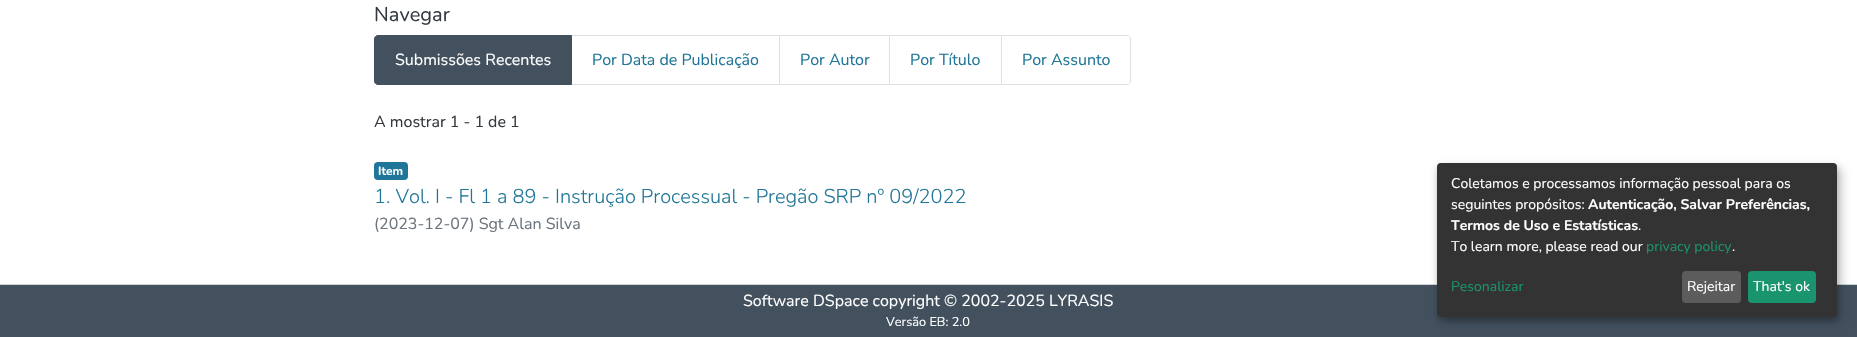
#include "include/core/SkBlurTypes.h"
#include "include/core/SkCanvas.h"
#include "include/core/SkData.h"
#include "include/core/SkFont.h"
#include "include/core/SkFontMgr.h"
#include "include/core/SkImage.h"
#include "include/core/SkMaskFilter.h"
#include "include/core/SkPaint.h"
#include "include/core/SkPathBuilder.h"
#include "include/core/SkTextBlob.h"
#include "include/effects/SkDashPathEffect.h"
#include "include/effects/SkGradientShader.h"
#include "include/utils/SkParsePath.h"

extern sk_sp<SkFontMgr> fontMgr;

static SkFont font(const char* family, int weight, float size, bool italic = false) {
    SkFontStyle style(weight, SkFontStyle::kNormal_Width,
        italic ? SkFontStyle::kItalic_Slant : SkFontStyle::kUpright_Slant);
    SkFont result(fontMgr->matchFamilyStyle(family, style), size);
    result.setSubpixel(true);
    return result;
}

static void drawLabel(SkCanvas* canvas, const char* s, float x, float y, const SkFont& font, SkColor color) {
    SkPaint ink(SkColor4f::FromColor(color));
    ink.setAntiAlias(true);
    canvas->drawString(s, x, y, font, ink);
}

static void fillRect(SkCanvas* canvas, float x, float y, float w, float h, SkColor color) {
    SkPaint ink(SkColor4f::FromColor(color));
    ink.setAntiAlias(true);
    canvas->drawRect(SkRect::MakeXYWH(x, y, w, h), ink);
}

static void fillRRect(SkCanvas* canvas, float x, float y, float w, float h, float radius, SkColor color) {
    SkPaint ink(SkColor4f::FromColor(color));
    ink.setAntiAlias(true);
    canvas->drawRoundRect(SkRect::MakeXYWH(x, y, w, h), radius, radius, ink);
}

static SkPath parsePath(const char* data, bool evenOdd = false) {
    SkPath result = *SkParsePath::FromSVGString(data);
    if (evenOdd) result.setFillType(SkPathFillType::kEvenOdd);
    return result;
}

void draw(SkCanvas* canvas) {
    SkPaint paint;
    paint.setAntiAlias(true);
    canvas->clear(0xFFFFFFFF);
    SkFont font1 = font("Nunito", 400, 20);
    drawLabel(canvas, "Navegar", 374, 21, font1, 0xFF343A40);
    paint.setStroke(true);
    paint.setStrokeWidth(1);
    paint.setColor(0xFFDFDFDF);
    canvas->drawRect(SkRect::MakeXYWH(571.5f, 35.5f, 208, 49), paint);
    paint.setStroke(false);
    paint.setColor(0xFF43515F);
    canvas->drawPath(parsePath("M378 35.5H571.5V84.5H378C376 84.5 374.5 83 374.5 81V39C374.5 37 376 35.5 378 35.5Z"), paint);
    paint.setStroke(true);
    canvas->drawPath(parsePath("M378 35.5H571.5V84.5H378C376 84.5 374.5 83 374.5 81V39C374.5 37 376 35.5 378 35.5Z"), paint);
    SkFont font2 = font("Nunito", 400, 16);
    drawLabel(canvas, "Submissões Recentes", 395, 65, font2, 0xFFFFFFFF);
    drawLabel(canvas, "Por Data de Publicação", 592, 65, font2, 0xFF207698);
    paint.setColor(0xFFDFDFDF);
    canvas->drawRect(SkRect::MakeXYWH(779.5f, 35.5f, 110, 49), paint);
    drawLabel(canvas, "Por Autor", 800, 65, font2, 0xFF207698);
    canvas->drawRect(SkRect::MakeXYWH(889.5f, 35.5f, 112, 49), paint);
    drawLabel(canvas, "Por Título", 910, 65, font2, 0xFF207698);
    paint.setStroke(false);
    paint.setColor(0xFFFFFFFF);
    canvas->drawPath(parsePath("M1001.5 35.5H1127C1129 35.5 1130.5 37 1130.5 39V81C1130.5 83 1129 84.5 1127 84.5H1001.5Z"), paint);
    paint.setStroke(true);
    paint.setColor(0xFFDFDFDF);
    canvas->drawPath(parsePath("M1001.5 35.5H1127C1129 35.5 1130.5 37 1130.5 39V81C1130.5 83 1129 84.5 1127 84.5H1001.5Z"), paint);
    drawLabel(canvas, "Por Assunto", 1022, 65, font2, 0xFF207698);
    drawLabel(canvas, "A mostrar 1 - 1 de 1", 374, 127, font2, 0xFF343A40);
    fillRRect(canvas, 374, 162, 34, 18, 4, 0xFF207698);
    SkFont font3 = font("Nunito", 700, 12);
    drawLabel(canvas, "Item", 378, 175, font3, 0xFFFFFFFF);
    SkFont font4 = font("Nunito", 300, 20);
    drawLabel(canvas, "1. Vol. I - Fl 1 a 89 - Instrução Processual - Pregão SRP nº 09/2022", 374, 203, font4, 0xFF207698);
    drawLabel(canvas, "(2023-12-07) Sgt Alan Silva", 374, 229, font2, 0xFF6C757D);
    fillRect(canvas, 0, 285, 1857, 52, 0xFF43515F);
    fillRect(canvas, 0, 284, 1857, 1, 0xFFCED4DA);
    drawLabel(canvas, "Software DSpace copyright © 2002-2025 LYRASIS", 743, 306, font2, 0xFFFFFFFF);
    SkFont font5 = font("Nunito", 400, 12.75f);
    drawLabel(canvas, "Versão EB: 2.0", 886, 326, font5, 0xFFFFFFFF);
    paint.setStroke(false);
    paint.setColor(0x30000000);
    paint.setMaskFilter(SkMaskFilter::MakeBlur(kNormal_SkBlurStyle, 5));
    canvas->drawRoundRect(SkRect::MakeXYWH(1442, 168, 400, 154), 4, 4, paint);
    paint.setMaskFilter(nullptr);
    paint.setColor(0x33000000);
    paint.setMaskFilter(SkMaskFilter::MakeBlur(kNormal_SkBlurStyle, 3));
    canvas->drawRoundRect(SkRect::MakeXYWH(1437, 167, 400, 154), 4, 4, paint);
    paint.setMaskFilter(nullptr);
    fillRRect(canvas, 1437, 163, 400, 154, 4, 0xFF333333);
    SkFont font6 = font("Nunito", 400, 14);
    drawLabel(canvas, "Coletamos e processamos informação pessoal para os", 1451, 188, font6, 0xFFFFFFFF);
    drawLabel(canvas, "seguintes propósitos:", 1451, 209, font6, 0xFFFFFFFF);
    SkFont font7 = font("Nunito", 700, 14);
    drawLabel(canvas, "Autenticação, Salvar Preferências,", 1588, 209, font7, 0xFFFFFFFF);
    drawLabel(canvas, "Termos de Uso e Estatísticas", 1451, 230, font7, 0xFFFFFFFF);
    drawLabel(canvas, ".", 1638, 230, font6, 0xFFFFFFFF);
    drawLabel(canvas, "To learn more, please read our", 1451, 251, font6, 0xFFFFFFFF);
    drawLabel(canvas, "privacy policy", 1646, 251, font6, 0xFF1A936F);
    drawLabel(canvas, ".", 1732, 251, font6, 0xFFFFFFFF);
    drawLabel(canvas, "Pesonalizar", 1451, 291, font6, 0xFF1A936F);
    fillRRect(canvas, 1682, 271, 59, 32, 4, 0xFF5C5C5C);
    drawLabel(canvas, "Rejeitar", 1687, 291, font6, 0xFFFFFFFF);
    fillRRect(canvas, 1748, 271, 68, 32, 4, 0xFF1A936F);
    drawLabel(canvas, "That's ok", 1753, 291, font6, 0xFFFFFFFF);
}
